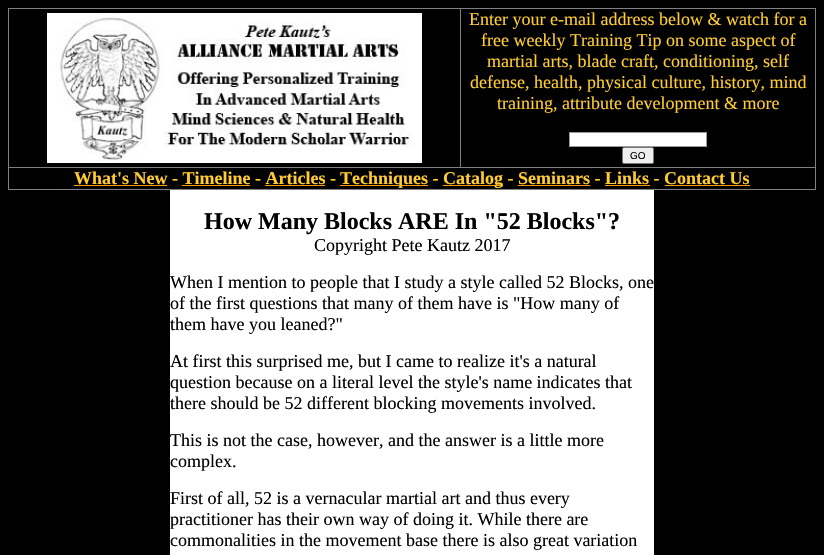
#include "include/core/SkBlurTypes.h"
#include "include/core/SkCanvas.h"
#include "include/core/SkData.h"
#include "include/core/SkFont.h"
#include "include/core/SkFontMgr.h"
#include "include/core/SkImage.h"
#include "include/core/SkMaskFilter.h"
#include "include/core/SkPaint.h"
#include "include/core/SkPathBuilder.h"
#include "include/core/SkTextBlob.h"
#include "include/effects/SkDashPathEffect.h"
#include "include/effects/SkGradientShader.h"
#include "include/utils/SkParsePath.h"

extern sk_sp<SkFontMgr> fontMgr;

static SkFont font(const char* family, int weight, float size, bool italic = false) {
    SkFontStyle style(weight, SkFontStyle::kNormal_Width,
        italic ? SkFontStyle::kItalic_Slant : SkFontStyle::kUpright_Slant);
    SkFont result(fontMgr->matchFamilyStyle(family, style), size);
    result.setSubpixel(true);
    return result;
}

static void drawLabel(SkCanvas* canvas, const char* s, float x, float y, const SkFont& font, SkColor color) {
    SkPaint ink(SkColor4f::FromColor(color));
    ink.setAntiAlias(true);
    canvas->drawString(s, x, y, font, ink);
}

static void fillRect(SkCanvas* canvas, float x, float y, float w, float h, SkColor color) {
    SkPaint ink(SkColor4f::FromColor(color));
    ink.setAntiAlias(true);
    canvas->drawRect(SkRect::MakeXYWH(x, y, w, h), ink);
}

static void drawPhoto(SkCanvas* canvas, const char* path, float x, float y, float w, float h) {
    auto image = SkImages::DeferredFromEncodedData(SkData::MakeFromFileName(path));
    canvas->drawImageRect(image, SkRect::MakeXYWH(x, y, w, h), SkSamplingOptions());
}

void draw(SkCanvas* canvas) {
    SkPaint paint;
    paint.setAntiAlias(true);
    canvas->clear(0xFF000000);
    fillRect(canvas, 8, 8, 808, 1, 0xFF808080);
    fillRect(canvas, 815, 8, 1, 182, 0xFF808080);
    fillRect(canvas, 8, 189, 808, 1, 0xFF808080);
    fillRect(canvas, 8, 8, 1, 182, 0xFF808080);
    drawPhoto(canvas, "assets/img1.png", 47, 13, 375, 150);
    fillRect(canvas, 8, 167, 808, 1, 0xFF808080);
    fillRect(canvas, 460, 8, 1, 160, 0xFF808080);
    SkFont font1 = font("Liberation Serif", 400, 18);
    drawLabel(canvas, "Enter your e-mail address below & watch for a", 469, 25, font1, 0xFFFFCC33);
    drawLabel(canvas, "free weekly Training Tip on some aspect of", 481, 46, font1, 0xFFFFCC33);
    drawLabel(canvas, "martial arts, blade craft, conditioning, self", 487, 67, font1, 0xFFFFCC33);
    drawLabel(canvas, "defense, health, physical culture, history, mind", 470, 88, font1, 0xFFFFCC33);
    drawLabel(canvas, "training, attribute development & more", 497, 109, font1, 0xFFFFCC33);
    paint.setColor(0xFFFFFFFF);
    canvas->drawRect(SkRect::MakeXYWH(569.5f, 132.5f, 137, 14), paint);
    paint.setStroke(true);
    paint.setStrokeWidth(1);
    paint.setColor(0xFF999999);
    canvas->drawRect(SkRect::MakeXYWH(569.5f, 132.5f, 137, 14), paint);
    paint.setStroke(false);
    paint.setColor(0xFFEFEFEF);
    canvas->drawRoundRect(SkRect::MakeXYWH(622.5f, 147.5f, 31, 16), 1.5f, 1.5f, paint);
    paint.setStroke(true);
    paint.setColor(0xFF767676);
    canvas->drawRoundRect(SkRect::MakeXYWH(622.5f, 147.5f, 31, 16), 1.5f, 1.5f, paint);
    SkFont font2 = font("Liberation Sans", 400, 10);
    drawLabel(canvas, "GO", 630, 159, font2, 0xFF000000);
    SkFont font3 = font("Liberation Serif", 700, 18);
    drawLabel(canvas, "What's New - Timeline - Articles -", 74, 184, font3, 0xFFFFCC33);
    fillRect(canvas, 74, 185, 93, 1, 0xFFFF9900);
    fillRect(canvas, 182, 185, 68, 1, 0xFFFF9900);
    fillRect(canvas, 265, 185, 60, 1, 0xFFFF9900);
    fillRect(canvas, 340, 185, 88, 1, 0xFFFF9900);
    drawLabel(canvas, "Techniques -", 340, 184, font3, 0xFFFFCC33);
    fillRect(canvas, 443, 185, 60, 1, 0xFFFF9900);
    drawLabel(canvas, "Catalog - Seminars - Links - Contact Us", 443, 184, font3, 0xFFFFCC33);
    fillRect(canvas, 518, 185, 72, 1, 0xFFFF9900);
    fillRect(canvas, 605, 185, 45, 1, 0xFFFF9900);
    fillRect(canvas, 665, 185, 85, 1, 0xFFFF9900);
    fillRect(canvas, 170, 190, 484, 365, 0xFFFFFFFF);
    SkFont font4 = font("Liberation Serif", 700, 24);
    drawLabel(canvas, "How Many Blocks ARE In \"52 Blocks\"?", 204, 229, font4, 0xFF000000);
    drawLabel(canvas, "Copyright Pete Kautz 2017", 314, 251, font1, 0xFF000000);
    drawLabel(canvas, "When I mention to people that I study a style called 52 Blocks, one", 170, 288, font1, 0xFF000000);
    drawLabel(canvas, "of the first questions that many of them have is \"How many of", 170, 309, font1, 0xFF000000);
    drawLabel(canvas, "them have you leaned?\"", 170, 330, font1, 0xFF000000);
    drawLabel(canvas, "At first this surprised me, but I came to realize it's a natural", 170, 367, font1, 0xFF000000);
    drawLabel(canvas, "question because on a literal level the style's name indicates that", 170, 388, font1, 0xFF000000);
    drawLabel(canvas, "there should be 52 different blocking movements involved.", 170, 409, font1, 0xFF000000);
    drawLabel(canvas, "This is not the case, however, and the answer is a little more", 170, 446, font1, 0xFF000000);
    drawLabel(canvas, "complex.", 170, 467, font1, 0xFF000000);
    drawLabel(canvas, "First of all, 52 is a vernacular martial art and thus every", 170, 504, font1, 0xFF000000);
    drawLabel(canvas, "practitioner has their own way of doing it. While there are", 170, 525, font1, 0xFF000000);
    drawLabel(canvas, "commonalities in the movement base there is also great variation", 170, 546, font1, 0xFF000000);
}
